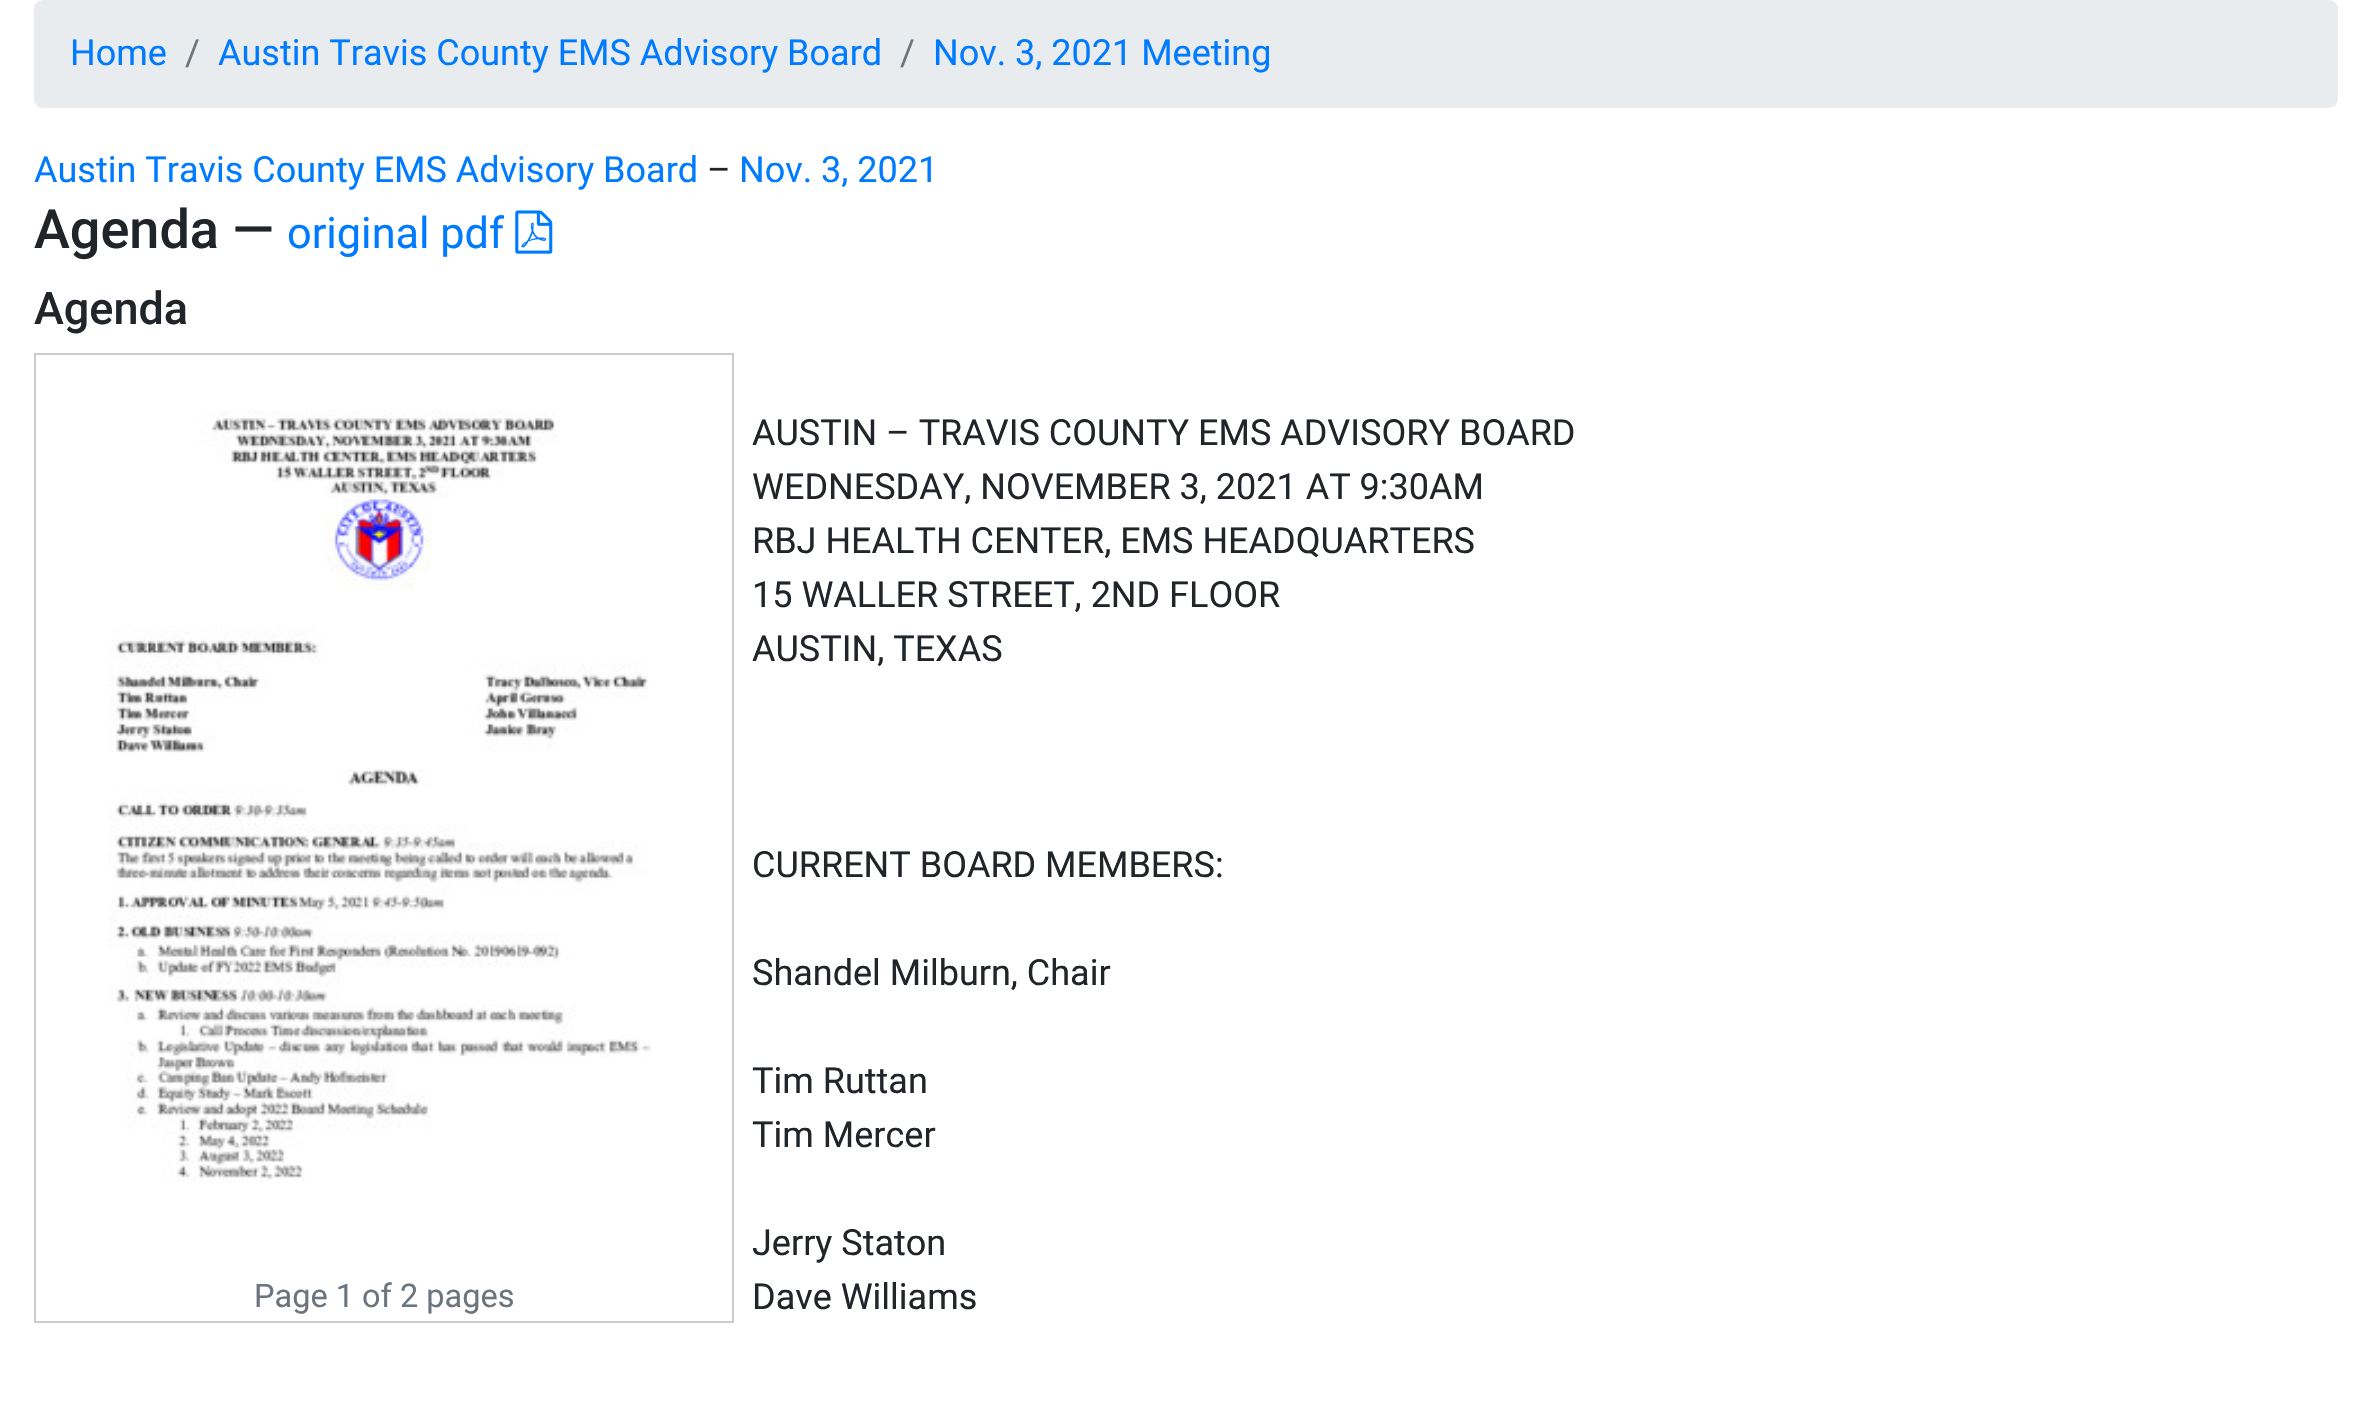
#include "include/core/SkBlurTypes.h"
#include "include/core/SkCanvas.h"
#include "include/core/SkData.h"
#include "include/core/SkFont.h"
#include "include/core/SkFontMgr.h"
#include "include/core/SkImage.h"
#include "include/core/SkMaskFilter.h"
#include "include/core/SkPaint.h"
#include "include/core/SkPathBuilder.h"
#include "include/core/SkTextBlob.h"
#include "include/effects/SkDashPathEffect.h"
#include "include/effects/SkGradientShader.h"
#include "include/utils/SkParsePath.h"

extern sk_sp<SkFontMgr> fontMgr;

static SkFont font(const char* family, int weight, float size, bool italic = false) {
    SkFontStyle style(weight, SkFontStyle::kNormal_Width,
        italic ? SkFontStyle::kItalic_Slant : SkFontStyle::kUpright_Slant);
    SkFont result(fontMgr->matchFamilyStyle(family, style), size);
    result.setSubpixel(true);
    return result;
}

static void drawLabel(SkCanvas* canvas, const char* s, float x, float y, const SkFont& font, SkColor color) {
    SkPaint ink(SkColor4f::FromColor(color));
    ink.setAntiAlias(true);
    canvas->drawString(s, x, y, font, ink);
}

static void fillRRect(SkCanvas* canvas, float x, float y, float w, float h, float radius, SkColor color) {
    SkPaint ink(SkColor4f::FromColor(color));
    ink.setAntiAlias(true);
    canvas->drawRoundRect(SkRect::MakeXYWH(x, y, w, h), radius, radius, ink);
}

static void drawPhoto(SkCanvas* canvas, const char* path, float x, float y, float w, float h) {
    auto image = SkImages::DeferredFromEncodedData(SkData::MakeFromFileName(path));
    canvas->drawImageRect(image, SkRect::MakeXYWH(x, y, w, h), SkSamplingOptions());
}

void draw(SkCanvas* canvas) {
    SkPaint paint;
    paint.setAntiAlias(true);
    canvas->clear(0xFFFFFFFF);
    fillRRect(canvas, 34, 0, 2304, 108, 9, 0xFFE9ECEF);
    SkFont font1 = font("Roboto", 400, 36);
    drawLabel(canvas, "Home", 70, 65, font1, 0xFF007BFF);
    drawLabel(canvas, "/", 185, 65, font1, 0xFF6C757D);
    drawLabel(canvas, "Austin Travis County EMS Advisory Board", 218, 65, font1, 0xFF007BFF);
    drawLabel(canvas, "/", 900, 65, font1, 0xFF6C757D);
    drawLabel(canvas, "Nov. 3, 2021 Meeting", 933, 65, font1, 0xFF007BFF);
    drawLabel(canvas, "Austin Travis County EMS Advisory Board", 34, 182, font1, 0xFF007BFF);
    drawLabel(canvas, "–", 707, 182, font1, 0xFF212529);
    drawLabel(canvas, "Nov. 3, 2021", 739, 182, font1, 0xFF007BFF);
    SkFont font2 = font("Roboto", 500, 54);
    drawLabel(canvas, "Agenda —", 34, 248, font2, 0xFF212529);
    SkFont font3 = font("Roboto", 400, 43.25f);
    drawLabel(canvas, "original pdf", 287, 248, font3, 0xFF007BFF);
    drawPhoto(canvas, "assets/img1.png", 515, 210, 38, 44);
    SkFont font4 = font("Roboto", 500, 45);
    drawLabel(canvas, "Agenda", 34, 324, font4, 0xFF212529);
    paint.setStroke(true);
    paint.setStrokeWidth(2);
    paint.setColor(0xFFCCCCCC);
    canvas->drawRect(SkRect::MakeXYWH(35, 354, 698, 968), paint);
    drawPhoto(canvas, "assets/img2.png", 108, 410, 543, 773);
    SkFont font5 = font("Roboto", 400, 32.5f);
    drawLabel(canvas, "Page 1 of 2 pages", 254, 1307, font5, 0xFF6C757D);
    drawLabel(canvas, "AUSTIN – TRAVIS COUNTY EMS ADVISORY BOARD", 752, 445, font1, 0xFF212529);
    drawLabel(canvas, "WEDNESDAY, NOVEMBER 3, 2021 AT 9:30AM", 752, 499, font1, 0xFF212529);
    drawLabel(canvas, "RBJ HEALTH CENTER, EMS HEADQUARTERS", 752, 553, font1, 0xFF212529);
    drawLabel(canvas, "15 WALLER STREET, 2ND FLOOR", 752, 607, font1, 0xFF212529);
    drawLabel(canvas, "AUSTIN, TEXAS", 752, 661, font1, 0xFF212529);
    drawLabel(canvas, "CURRENT BOARD MEMBERS:", 752, 877, font1, 0xFF212529);
    drawLabel(canvas, "Shandel Milburn, Chair", 752, 985, font1, 0xFF212529);
    drawLabel(canvas, "Tim Ruttan", 752, 1093, font1, 0xFF212529);
    drawLabel(canvas, "Tim Mercer", 752, 1147, font1, 0xFF212529);
    drawLabel(canvas, "Jerry Staton", 752, 1255, font1, 0xFF212529);
    drawLabel(canvas, "Dave Williams", 752, 1309, font1, 0xFF212529);
}
